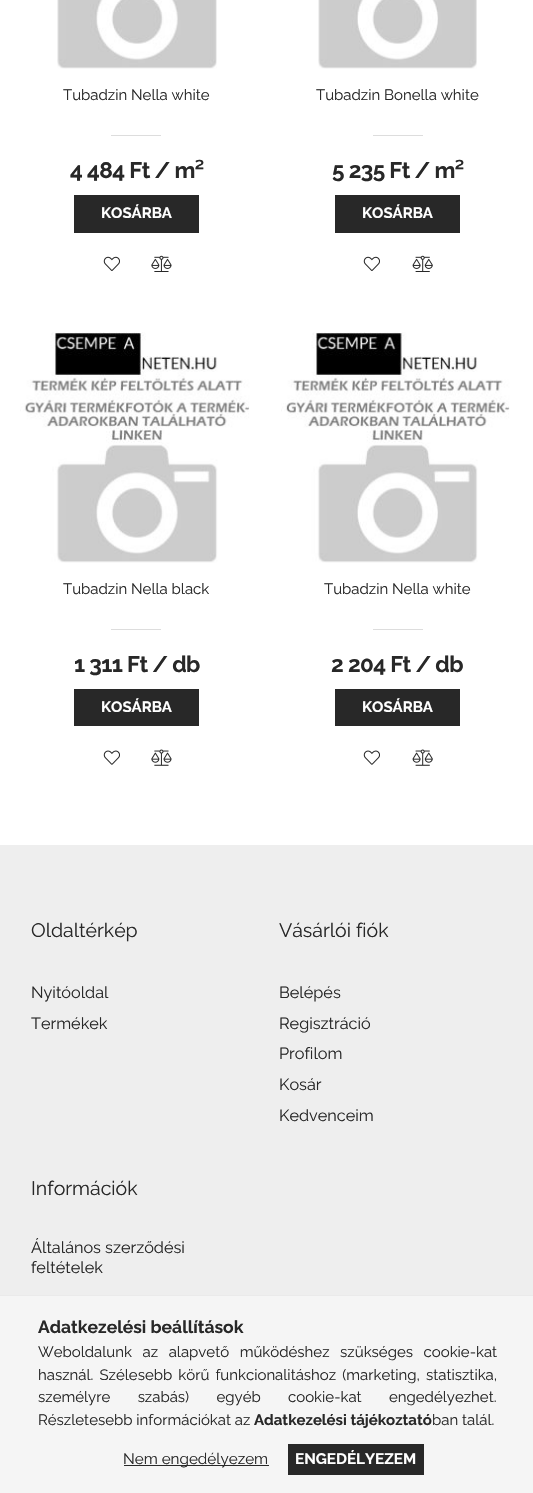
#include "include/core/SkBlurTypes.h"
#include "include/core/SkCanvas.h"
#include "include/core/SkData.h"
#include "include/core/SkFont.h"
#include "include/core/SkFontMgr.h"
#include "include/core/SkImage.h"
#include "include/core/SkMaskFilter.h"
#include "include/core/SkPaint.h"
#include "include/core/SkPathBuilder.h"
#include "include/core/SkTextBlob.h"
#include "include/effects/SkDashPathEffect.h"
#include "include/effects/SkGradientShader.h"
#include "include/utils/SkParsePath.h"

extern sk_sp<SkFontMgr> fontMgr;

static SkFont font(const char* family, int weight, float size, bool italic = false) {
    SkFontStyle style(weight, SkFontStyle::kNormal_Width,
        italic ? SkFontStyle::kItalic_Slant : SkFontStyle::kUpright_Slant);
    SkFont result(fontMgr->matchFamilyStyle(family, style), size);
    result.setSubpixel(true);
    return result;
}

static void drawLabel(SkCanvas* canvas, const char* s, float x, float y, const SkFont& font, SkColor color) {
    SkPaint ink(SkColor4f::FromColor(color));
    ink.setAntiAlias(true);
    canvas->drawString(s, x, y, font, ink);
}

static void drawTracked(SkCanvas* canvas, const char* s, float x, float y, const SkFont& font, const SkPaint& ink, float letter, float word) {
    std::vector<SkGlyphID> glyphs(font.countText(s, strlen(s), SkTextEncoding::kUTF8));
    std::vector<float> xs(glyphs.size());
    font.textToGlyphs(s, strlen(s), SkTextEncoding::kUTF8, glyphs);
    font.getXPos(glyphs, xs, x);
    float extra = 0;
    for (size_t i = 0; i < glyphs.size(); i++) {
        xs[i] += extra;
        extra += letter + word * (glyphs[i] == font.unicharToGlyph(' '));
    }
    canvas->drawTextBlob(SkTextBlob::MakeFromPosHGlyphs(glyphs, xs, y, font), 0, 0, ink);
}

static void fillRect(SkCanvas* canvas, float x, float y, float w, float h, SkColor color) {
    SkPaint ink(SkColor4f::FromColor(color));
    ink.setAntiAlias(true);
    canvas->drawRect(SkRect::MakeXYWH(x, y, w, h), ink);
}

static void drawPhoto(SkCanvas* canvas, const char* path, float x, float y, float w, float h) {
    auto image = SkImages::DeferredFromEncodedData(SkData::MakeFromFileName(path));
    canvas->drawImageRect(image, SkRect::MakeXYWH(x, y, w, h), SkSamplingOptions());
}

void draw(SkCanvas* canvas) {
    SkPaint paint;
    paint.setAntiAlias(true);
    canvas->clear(0xFFFFFFFF);
    drawPhoto(canvas, "assets/img1.png", 57, 0, 160, 69);
    SkFont font1 = font("Raleway", 400, 15);
    drawLabel(canvas, "Tubadzin Nella white", 63, 100, font1, 0xFF282828);
    fillRect(canvas, 111, 135, 50, 1, 0xFFDDDDDD);
    SkFont font2 = font("Raleway", 700, 22.5f);
    paint.setColor(0xFF282828);
    drawTracked(canvas, "4 484 Ft / m²", 70, 178, font2, paint, -0.6f, 0);
    fillRect(canvas, 74, 195, 125, 38, 0xFF282828);
    SkFont font3 = font("Raleway", 700, 15);
    drawLabel(canvas, "KOSÁRBA", 101, 218, font3, 0xFFFFFFFF);
    drawPhoto(canvas, "assets/img2.png", 103, 256, 17, 15);
    drawPhoto(canvas, "assets/img3.png", 151, 255, 21, 17);
    drawPhoto(canvas, "assets/img4.png", 318, 0, 159, 69);
    drawLabel(canvas, "Tubadzin Bonella white", 316, 100, font1, 0xFF282828);
    fillRect(canvas, 373, 135, 50, 1, 0xFFDDDDDD);
    drawTracked(canvas, "5 235 Ft / m²", 332, 178, font2, paint, -0.6f, 0);
    fillRect(canvas, 335, 195, 125, 38, 0xFF282828);
    drawLabel(canvas, "KOSÁRBA", 362, 218, font3, 0xFFFFFFFF);
    drawPhoto(canvas, "assets/img2.png", 363, 256, 17, 15);
    drawPhoto(canvas, "assets/img5.png", 412, 255, 21, 17);
    drawPhoto(canvas, "assets/img6.png", 20, 332, 230, 231);
    drawLabel(canvas, "Tubadzin Nella black", 63, 594, font1, 0xFF282828);
    fillRect(canvas, 111, 629, 50, 1, 0xFFDDDDDD);
    drawTracked(canvas, "1 311 Ft / db", 74, 672, font2, paint, -0.6f, 0);
    fillRect(canvas, 74, 689, 125, 37, 0xFF282828);
    drawLabel(canvas, "KOSÁRBA", 101, 712, font3, 0xFFFFFFFF);
    drawPhoto(canvas, "assets/img7.png", 103, 750, 17, 15);
    drawPhoto(canvas, "assets/img8.png", 151, 749, 21, 17);
    drawPhoto(canvas, "assets/img9.png", 281, 332, 229, 231);
    drawLabel(canvas, "Tubadzin Nella white", 324, 594, font1, 0xFF282828);
    fillRect(canvas, 373, 629, 50, 1, 0xFFDDDDDD);
    drawTracked(canvas, "2 204 Ft / db", 331, 672, font2, paint, -0.6f, 0);
    fillRect(canvas, 335, 689, 125, 37, 0xFF282828);
    drawLabel(canvas, "KOSÁRBA", 362, 712, font3, 0xFFFFFFFF);
    drawPhoto(canvas, "assets/img7.png", 363, 750, 17, 15);
    drawPhoto(canvas, "assets/img10.png", 412, 749, 21, 17);
    fillRect(canvas, 0, 845, 533, 450, 0xFFEEEEEE);
    SkFont font4 = font("Raleway", 400, 19.5f);
    drawLabel(canvas, "Oldaltérkép", 31, 937, font4, 0xFF282828);
    SkFont font5 = font("Raleway", 400, 16.25f);
    drawLabel(canvas, "Nyitóoldal", 31, 998, font5, 0xFF282828);
    drawLabel(canvas, "Termékek", 31, 1029, font5, 0xFF282828);
    drawLabel(canvas, "Vásárlói fiók", 279, 937, font4, 0xFF282828);
    drawLabel(canvas, "Belépés", 279, 998, font5, 0xFF282828);
    drawLabel(canvas, "Regisztráció", 279, 1029, font5, 0xFF282828);
    drawLabel(canvas, "Profilom", 279, 1059, font5, 0xFF282828);
    drawLabel(canvas, "Kosár", 279, 1090, font5, 0xFF282828);
    drawLabel(canvas, "Kedvenceim", 279, 1121, font5, 0xFF282828);
    drawLabel(canvas, "Információk", 31, 1195, font4, 0xFF282828);
    drawLabel(canvas, "Általános szerződési", 31, 1253, font5, 0xFF282828);
    drawLabel(canvas, "feltételek", 31, 1273, font5, 0xFF282828);
    fillRect(canvas, 0, 1296, 533, 197, 0xFFF5F5F5);
    fillRect(canvas, 0, 1295, 533, 1, 0xFFEAEAEA);
    SkFont font6 = font("Raleway", 700, 17.5f);
    drawLabel(canvas, "Adatkezelési beállítások", 38, 1333, font6, 0xFF282828);
    drawTracked(canvas, "Weboldalunk az alapvető működéshez szükséges cookie-kat", 38, 1357, font1, paint, 0, 6.75f);
    drawTracked(canvas, "használ. Szélesebb körű funkcionalitáshoz (marketing, statisztika,", 38, 1380, font1, paint, 0, 2.25f);
    drawTracked(canvas, "személyre szabás) egyéb cookie-kat engedélyezhet.", 38, 1402, font1, paint, 0, 23.5f);
    drawLabel(canvas, "Részletesebb információkat az", 38, 1425, font1, 0xFF282828);
    drawLabel(canvas, "Adatkezelési tájékoztató", 254, 1425, font3, 0xFF282828);
    drawLabel(canvas, "ban talál.", 432, 1425, font1, 0xFF282828);
    fillRect(canvas, 124, 1465, 145, 1, 0xFF282828);
    SkFont font7 = font("Raleway", 400, 15.25f);
    drawLabel(canvas, "Nem engedélyezem", 123, 1464, font7, 0xFF282828);
    fillRect(canvas, 288, 1444, 136, 31, 0xFF282828);
    SkFont font8 = font("Raleway", 700, 15.25f);
    drawLabel(canvas, "ENGEDÉLYEZEM", 295, 1464, font8, 0xFFFFFFFF);
}
